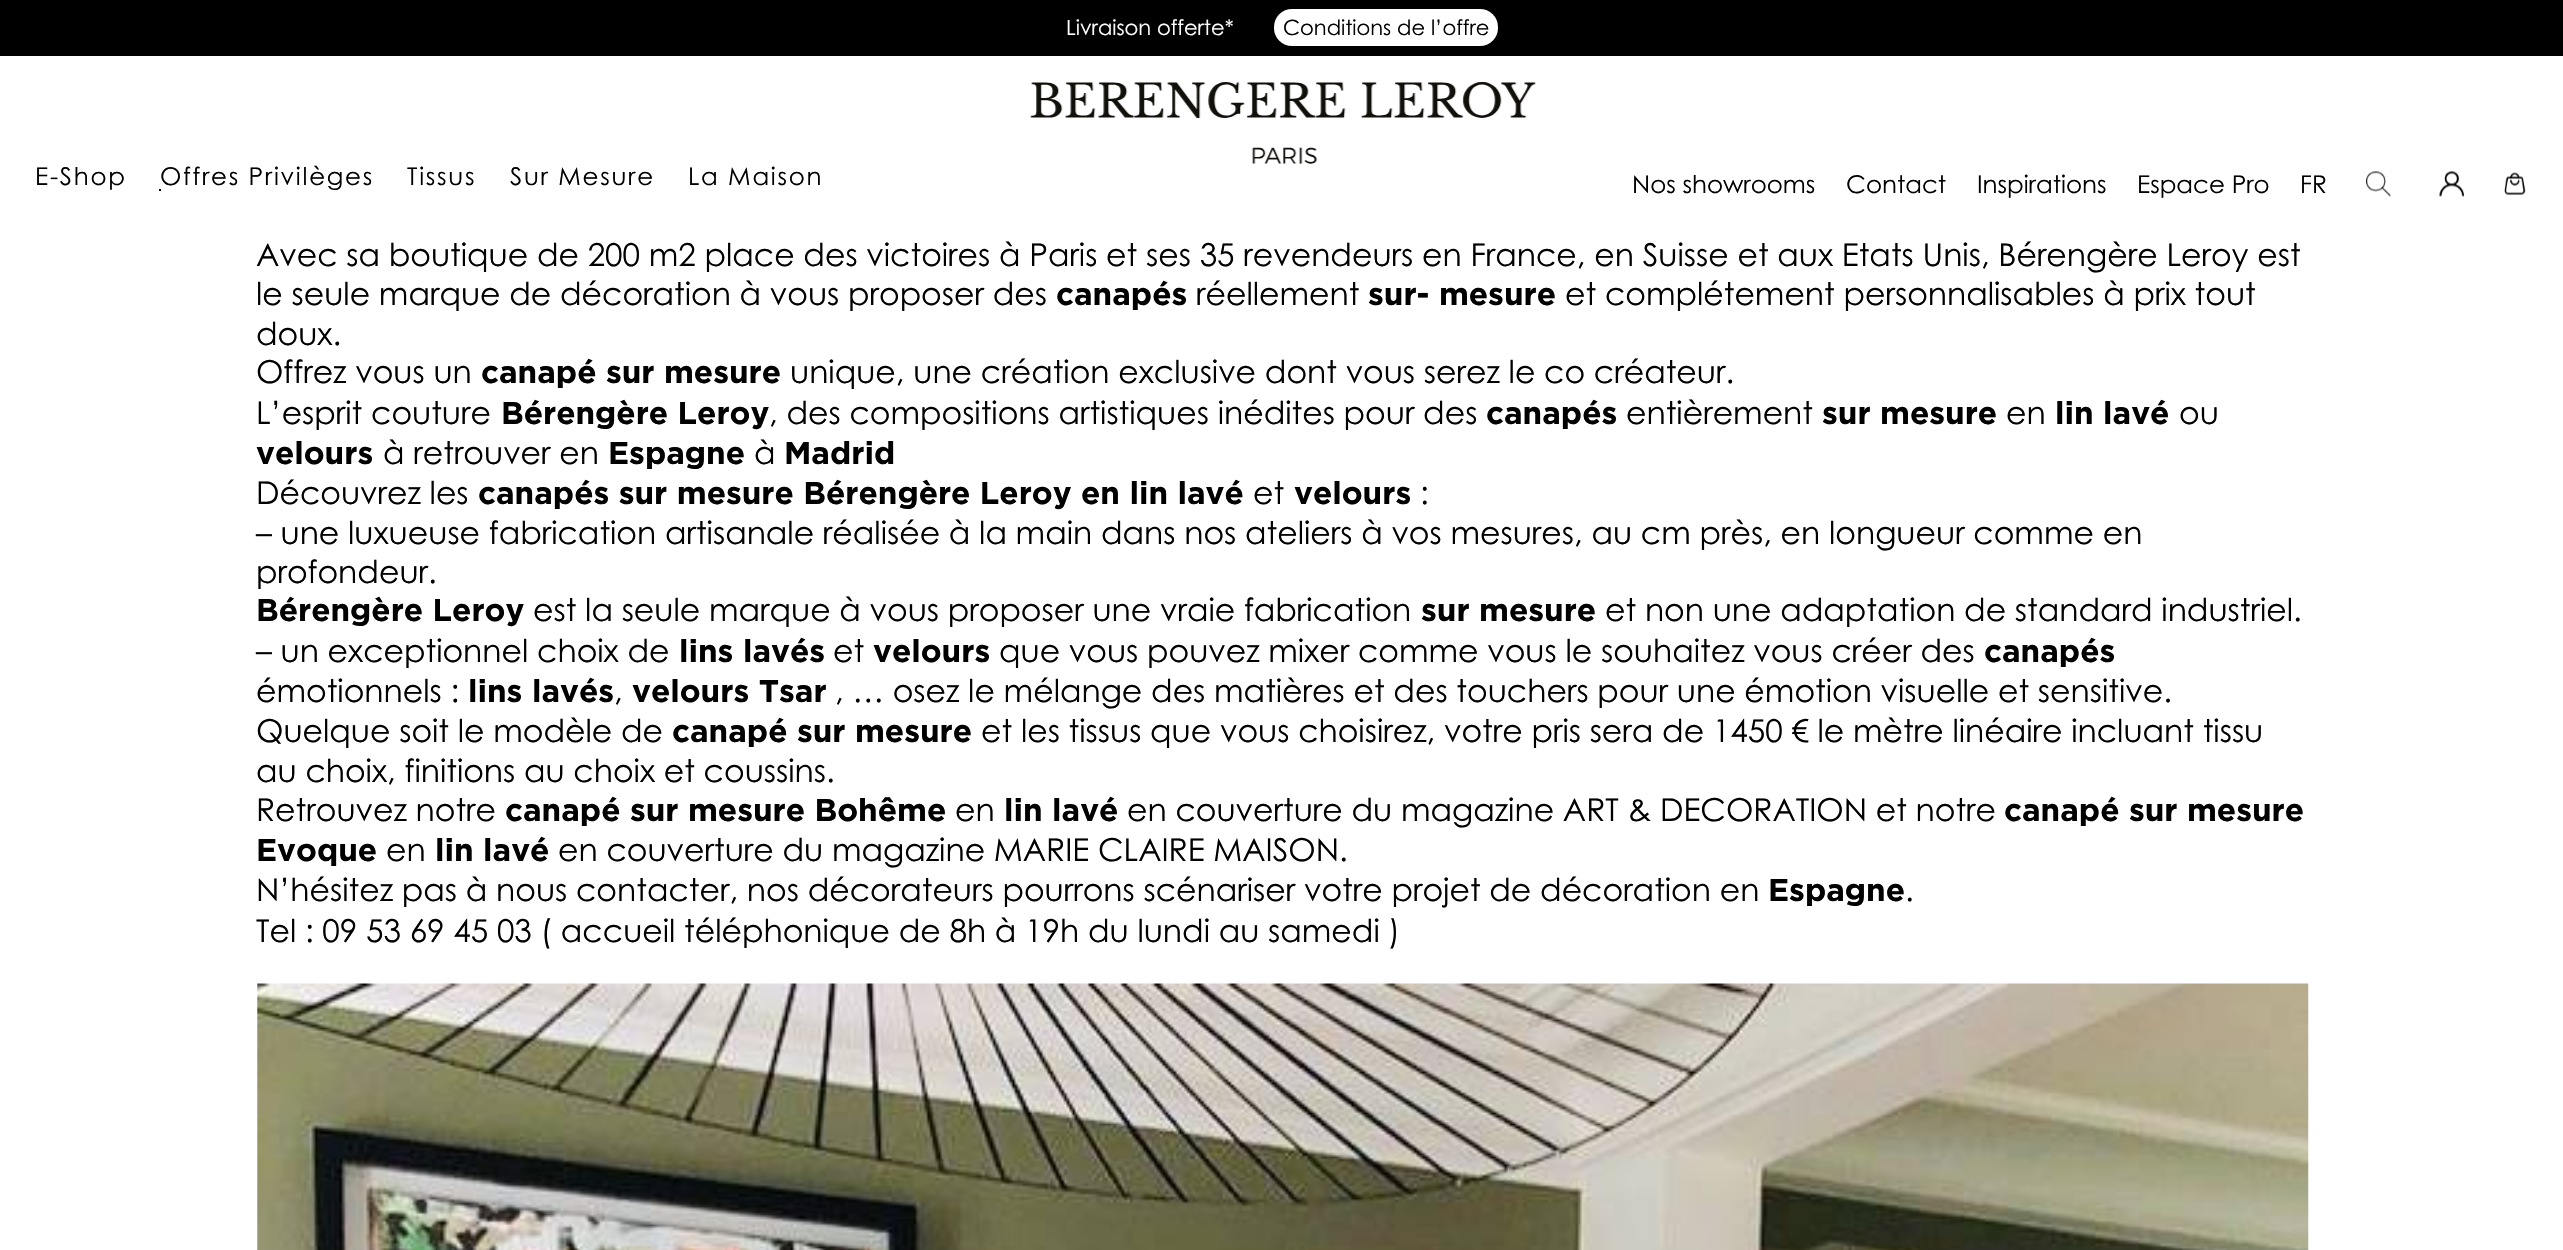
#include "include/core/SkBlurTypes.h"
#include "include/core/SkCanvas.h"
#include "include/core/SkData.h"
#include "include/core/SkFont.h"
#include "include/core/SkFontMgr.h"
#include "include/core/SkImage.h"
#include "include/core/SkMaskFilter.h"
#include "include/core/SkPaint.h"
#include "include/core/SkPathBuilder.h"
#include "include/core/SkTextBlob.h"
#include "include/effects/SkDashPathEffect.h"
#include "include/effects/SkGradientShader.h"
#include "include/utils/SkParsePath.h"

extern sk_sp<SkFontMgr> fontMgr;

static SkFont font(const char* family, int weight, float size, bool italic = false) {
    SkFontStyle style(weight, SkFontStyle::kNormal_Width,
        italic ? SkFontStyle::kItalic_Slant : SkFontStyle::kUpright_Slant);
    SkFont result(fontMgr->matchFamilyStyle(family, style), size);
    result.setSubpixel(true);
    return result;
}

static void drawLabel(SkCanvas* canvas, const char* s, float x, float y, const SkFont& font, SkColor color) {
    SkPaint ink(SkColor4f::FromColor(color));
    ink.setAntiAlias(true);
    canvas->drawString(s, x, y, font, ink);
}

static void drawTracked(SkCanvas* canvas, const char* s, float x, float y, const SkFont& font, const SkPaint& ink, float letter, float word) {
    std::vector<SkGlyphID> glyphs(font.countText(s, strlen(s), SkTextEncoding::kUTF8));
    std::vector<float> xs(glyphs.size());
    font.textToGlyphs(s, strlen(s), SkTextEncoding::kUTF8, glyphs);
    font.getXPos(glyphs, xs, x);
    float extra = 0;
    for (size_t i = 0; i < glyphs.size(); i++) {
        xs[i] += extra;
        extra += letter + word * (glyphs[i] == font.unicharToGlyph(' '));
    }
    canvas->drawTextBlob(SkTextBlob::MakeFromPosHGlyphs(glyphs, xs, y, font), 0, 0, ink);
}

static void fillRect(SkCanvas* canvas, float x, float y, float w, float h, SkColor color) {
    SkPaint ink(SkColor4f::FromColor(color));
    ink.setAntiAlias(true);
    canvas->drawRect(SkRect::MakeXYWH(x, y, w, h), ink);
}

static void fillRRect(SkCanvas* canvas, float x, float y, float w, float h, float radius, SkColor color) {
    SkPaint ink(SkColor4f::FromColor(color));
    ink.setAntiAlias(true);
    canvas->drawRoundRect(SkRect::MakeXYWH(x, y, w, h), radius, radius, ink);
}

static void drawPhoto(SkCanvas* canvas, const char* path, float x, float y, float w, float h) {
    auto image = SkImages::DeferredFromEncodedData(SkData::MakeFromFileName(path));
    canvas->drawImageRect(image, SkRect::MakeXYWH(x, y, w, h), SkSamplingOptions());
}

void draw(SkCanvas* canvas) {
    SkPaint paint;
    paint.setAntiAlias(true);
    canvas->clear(0xFFFFFFFF);
    fillRect(canvas, 0, 0, 2563, 56, 0xFF000000);
    SkFont font1 = font("Century Gothic", 400, 21);
    drawLabel(canvas, "Livraison offerte*", 1066, 35, font1, 0xFFFFFFFF);
    fillRRect(canvas, 1274, 9, 224, 37, 18, 0xFFFFFFFF);
    drawLabel(canvas, "Conditions de l’offre", 1283, 35, font1, 0xFF000000);
    drawPhoto(canvas, "assets/img1.png", 1030, 82, 506, 82);
    SkFont font2 = font("Century Gothic", 400, 24.5f);
    paint.setColor(0xFF000000);
    drawTracked(canvas, "E-Shop", 35, 185, font2, paint, 1.75f, 0);
    fillRect(canvas, 159, 189, 2, 2, 0xFF000000);
    drawTracked(canvas, "Offres Privilèges", 160, 185, font2, paint, 1.75f, 0);
    drawTracked(canvas, "Tissus", 407, 185, font2, paint, 1.75f, 0);
    drawTracked(canvas, "Sur Mesure", 510, 185, font2, paint, 1.75f, 0);
    drawTracked(canvas, "La Maison", 688, 185, font2, paint, 1.75f, 0);
    drawLabel(canvas, "Nos showrooms", 1632, 193, font2, 0xFF000000);
    drawLabel(canvas, "Contact", 1846, 193, font2, 0xFF000000);
    drawLabel(canvas, "Inspirations", 1977, 193, font2, 0xFF000000);
    drawLabel(canvas, "Espace Pro", 2137, 193, font2, 0xFF000000);
    drawLabel(canvas, "FR", 2300, 193, font2, 0xFF000000);
    drawPhoto(canvas, "assets/img2.png", 2366, 171, 25, 26);
    drawPhoto(canvas, "assets/img3.png", 2439, 171, 25, 26);
    drawPhoto(canvas, "assets/img4.png", 2504, 172, 22, 23);
    SkFont font3 = font("Century Gothic", 400, 31.5f);
    drawLabel(canvas, "Avec sa boutique de 200 m2 place des victoires à Paris et ses 35 revendeurs en France, en Suisse et aux Etats Unis, Bérengère Leroy est", 256, 266, font3, 0xFF000000);
    drawLabel(canvas, "le seule marque de décoration à vous proposer des", 256, 305, font3, 0xFF000000);
    SkFont font4 = font("Gotham", 700, 31.5f);
    drawLabel(canvas, "canapés", 1056, 305, font4, 0xFF000000);
    drawLabel(canvas, "réellement", 1196, 305, font3, 0xFF000000);
    drawLabel(canvas, "sur- mesure", 1368, 305, font4, 0xFF000000);
    drawLabel(canvas, "et complétement personnalisables à prix tout", 1565, 305, font3, 0xFF000000);
    drawLabel(canvas, "doux.", 256, 345, font3, 0xFF000000);
    drawLabel(canvas, "Offrez vous un", 256, 383, font3, 0xFF000000);
    drawLabel(canvas, "canapé sur mesure", 481, 383, font4, 0xFF000000);
    drawLabel(canvas, "unique, une création exclusive dont vous serez le co créateur.", 790, 383, font3, 0xFF000000);
    drawLabel(canvas, "L’esprit couture", 256, 424, font3, 0xFF000000);
    drawLabel(canvas, "Bérengère Leroy", 501, 424, font4, 0xFF000000);
    drawLabel(canvas, ", des compositions artistiques inédites pour des", 769, 424, font3, 0xFF000000);
    drawLabel(canvas, "canapés", 1486, 424, font4, 0xFF000000);
    drawLabel(canvas, "entièrement", 1626, 424, font3, 0xFF000000);
    drawLabel(canvas, "sur mesure", 1822, 424, font4, 0xFF000000);
    drawLabel(canvas, "en", 2006, 424, font3, 0xFF000000);
    drawLabel(canvas, "lin lavé", 2055, 424, font4, 0xFF000000);
    drawLabel(canvas, "ou", 2179, 424, font3, 0xFF000000);
    drawLabel(canvas, "velours", 256, 464, font4, 0xFF000000);
    drawLabel(canvas, "à retrouver en", 383, 464, font3, 0xFF000000);
    drawLabel(canvas, "Espagne", 608, 464, font4, 0xFF000000);
    drawLabel(canvas, "à", 754, 464, font3, 0xFF000000);
    drawLabel(canvas, "Madrid", 784, 464, font4, 0xFF000000);
    drawLabel(canvas, "Découvrez les", 256, 504, font3, 0xFF000000);
    drawLabel(canvas, "canapés sur mesure Bérengère Leroy en lin lavé", 478, 504, font4, 0xFF000000);
    drawLabel(canvas, "et", 1253, 504, font3, 0xFF000000);
    drawLabel(canvas, "velours", 1294, 504, font4, 0xFF000000);
    drawLabel(canvas, ":", 1420, 504, font3, 0xFF000000);
    drawLabel(canvas, "– une luxueuse fabrication artisanale réalisée à la main dans nos ateliers à vos mesures, au cm près, en longueur comme en", 256, 544, font3, 0xFF000000);
    drawLabel(canvas, "profondeur.", 256, 583, font3, 0xFF000000);
    drawLabel(canvas, "Bérengère Leroy", 256, 621, font4, 0xFF000000);
    drawLabel(canvas, "est la seule marque à vous proposer une vraie fabrication", 533, 621, font3, 0xFF000000);
    drawLabel(canvas, "sur mesure", 1421, 621, font4, 0xFF000000);
    drawLabel(canvas, "et non une adaptation de standard industriel.", 1605, 621, font3, 0xFF000000);
    drawLabel(canvas, "– un exceptionnel choix de", 256, 662, font3, 0xFF000000);
    drawLabel(canvas, "lins lavés", 679, 662, font4, 0xFF000000);
    drawLabel(canvas, "et", 833, 662, font3, 0xFF000000);
    drawLabel(canvas, "velours", 873, 662, font4, 0xFF000000);
    drawLabel(canvas, "que vous pouvez mixer comme vous le souhaitez vous créer des", 999, 662, font3, 0xFF000000);
    drawLabel(canvas, "canapés", 1984, 662, font4, 0xFF000000);
    drawLabel(canvas, "émotionnels :", 256, 702, font3, 0xFF000000);
    drawLabel(canvas, "lins lavés", 468, 702, font4, 0xFF000000);
    drawLabel(canvas, ",", 614, 702, font3, 0xFF000000);
    drawLabel(canvas, "velours Tsar", 632, 702, font4, 0xFF000000);
    drawLabel(canvas, ", … osez le mélange des matières et des touchers pour une émotion visuelle et sensitive.", 835, 702, font3, 0xFF000000);
    drawLabel(canvas, "Quelque soit le modèle de", 256, 742, font3, 0xFF000000);
    drawLabel(canvas, "canapé sur mesure", 672, 742, font4, 0xFF000000);
    drawLabel(canvas, "et les tissus que vous choisirez, votre pris sera de 1450 € le mètre linéaire incluant tissu", 981, 742, font3, 0xFF000000);
    drawLabel(canvas, "au choix, finitions au choix et coussins.", 256, 782, font3, 0xFF000000);
    drawLabel(canvas, "Retrouvez notre", 256, 821, font3, 0xFF000000);
    drawLabel(canvas, "canapé sur mesure Bohême", 505, 821, font4, 0xFF000000);
    drawLabel(canvas, "en", 955, 821, font3, 0xFF000000);
    drawLabel(canvas, "lin lavé", 1004, 821, font4, 0xFF000000);
    drawLabel(canvas, "en couverture du magazine ART & DECORATION et notre", 1127, 821, font3, 0xFF000000);
    drawLabel(canvas, "canapé sur mesure", 2004, 821, font4, 0xFF000000);
    drawLabel(canvas, "Evoque", 256, 861, font4, 0xFF000000);
    drawLabel(canvas, "en", 386, 861, font3, 0xFF000000);
    drawLabel(canvas, "lin lavé", 435, 861, font4, 0xFF000000);
    drawLabel(canvas, "en couverture du magazine MARIE CLAIRE MAISON.", 558, 861, font3, 0xFF000000);
    drawLabel(canvas, "N’hésitez pas à nous contacter, nos décorateurs pourrons scénariser votre projet de décoration en", 256, 901, font3, 0xFF000000);
    drawLabel(canvas, "Espagne", 1768, 901, font4, 0xFF000000);
    drawLabel(canvas, ".", 1905, 901, font3, 0xFF000000);
    drawLabel(canvas, "Tel : 09 53 69 45 03 ( accueil téléphonique de 8h à 19h du lundi au samedi )", 256, 942, font3, 0xFF000000);
    drawPhoto(canvas, "assets/img5.png", 257, 983, 2052, 267);
}
